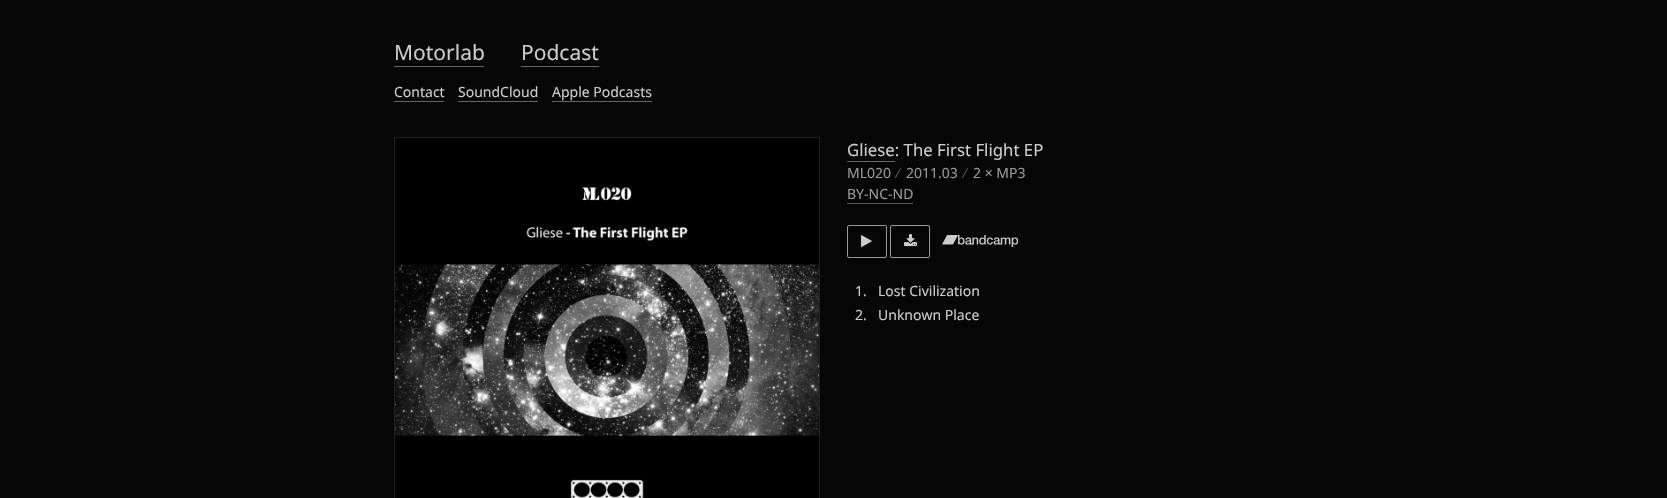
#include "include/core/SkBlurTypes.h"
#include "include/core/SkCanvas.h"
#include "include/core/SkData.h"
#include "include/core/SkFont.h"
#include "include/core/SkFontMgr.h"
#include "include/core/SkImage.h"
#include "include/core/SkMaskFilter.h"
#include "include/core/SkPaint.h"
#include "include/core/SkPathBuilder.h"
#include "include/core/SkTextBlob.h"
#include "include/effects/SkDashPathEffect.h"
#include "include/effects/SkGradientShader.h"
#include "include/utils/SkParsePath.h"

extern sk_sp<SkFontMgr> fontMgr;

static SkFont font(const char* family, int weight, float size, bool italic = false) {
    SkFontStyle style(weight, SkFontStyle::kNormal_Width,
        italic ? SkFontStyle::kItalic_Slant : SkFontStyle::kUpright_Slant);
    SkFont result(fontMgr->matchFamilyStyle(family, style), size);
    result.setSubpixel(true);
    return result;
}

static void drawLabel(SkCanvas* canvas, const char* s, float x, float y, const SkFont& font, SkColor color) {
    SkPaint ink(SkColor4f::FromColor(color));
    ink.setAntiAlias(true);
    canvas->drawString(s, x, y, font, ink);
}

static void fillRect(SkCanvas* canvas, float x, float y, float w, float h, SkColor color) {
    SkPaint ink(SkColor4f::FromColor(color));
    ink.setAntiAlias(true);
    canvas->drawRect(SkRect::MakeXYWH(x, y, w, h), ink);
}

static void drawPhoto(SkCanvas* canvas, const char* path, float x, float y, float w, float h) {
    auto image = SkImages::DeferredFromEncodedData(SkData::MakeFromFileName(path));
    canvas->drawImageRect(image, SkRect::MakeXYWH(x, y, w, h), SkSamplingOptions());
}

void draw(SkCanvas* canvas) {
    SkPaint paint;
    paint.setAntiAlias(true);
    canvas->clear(0xFF060606);
    SkFont font1 = font("Noto Sans", 400, 21);
    drawLabel(canvas, "Motorlab", 394, 60, font1, 0xFFCCCCCC);
    fillRect(canvas, 394, 66, 90, 1, 0xFF666666);
    drawLabel(canvas, "Podcast", 521, 60, font1, 0xFFCCCCCC);
    fillRect(canvas, 521, 66, 78, 1, 0xFF666666);
    SkFont font2 = font("Noto Sans", 400, 14);
    drawLabel(canvas, "Contact", 394, 97, font2, 0xFFCCCCCC);
    fillRect(canvas, 394, 101, 50, 1, 0xFF666666);
    drawLabel(canvas, "SoundCloud", 458, 97, font2, 0xFFCCCCCC);
    fillRect(canvas, 458, 101, 80, 1, 0xFF666666);
    drawLabel(canvas, "Apple Podcasts", 552, 97, font2, 0xFFCCCCCC);
    fillRect(canvas, 552, 101, 100, 1, 0xFF666666);
    paint.setStroke(true);
    paint.setStrokeWidth(1);
    paint.setColor(0xFF222222);
    canvas->drawRect(SkRect::MakeXYWH(394.5f, 137.5f, 425, 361), paint);
    drawPhoto(canvas, "assets/img1.png", 395, 138, 424, 360);
    SkFont font3 = font("Noto Sans", 400, 16.75f);
    drawLabel(canvas, "Gliese: The First Flight EP", 847, 156, font3, 0xFFCCCCCC);
    fillRect(canvas, 847, 161, 48, 1, 0xFF666666);
    drawLabel(canvas, "ML020", 847, 178, font2, 0xFF999999);
    SkFont font4 = font("Ubuntu", 400, 14);
    drawLabel(canvas, "∕", 894, 178, font4, 0xFF555555);
    drawLabel(canvas, "2011.03", 906, 178, font2, 0xFF999999);
    drawLabel(canvas, "∕", 961, 178, font4, 0xFF555555);
    drawLabel(canvas, "2 × MP3", 973, 178, font2, 0xFF999999);
    drawLabel(canvas, "BY-NC-ND", 847, 199, font2, 0xFF999999);
    fillRect(canvas, 847, 203, 66, 1, 0xFF555555);
    paint.setColor(0xFF999999);
    canvas->drawRoundRect(SkRect::MakeXYWH(847.5f, 225.5f, 39, 32), 1.5f, 1.5f, paint);
    drawPhoto(canvas, "assets/img2.png", 861, 235, 11, 13);
    canvas->drawRoundRect(SkRect::MakeXYWH(890.5f, 225.5f, 39, 32), 1.5f, 1.5f, paint);
    drawPhoto(canvas, "assets/img3.png", 904, 234, 13, 13);
    drawPhoto(canvas, "assets/img4.png", 942, 235, 76, 12);
    drawLabel(canvas, "1.", 855, 296, font2, 0xFFCCCCCC);
    drawLabel(canvas, "Lost Civilization", 878, 296, font2, 0xFFCCCCCC);
    drawLabel(canvas, "2.", 855, 320, font2, 0xFFCCCCCC);
    drawLabel(canvas, "Unknown Place", 878, 320, font2, 0xFFCCCCCC);
}
